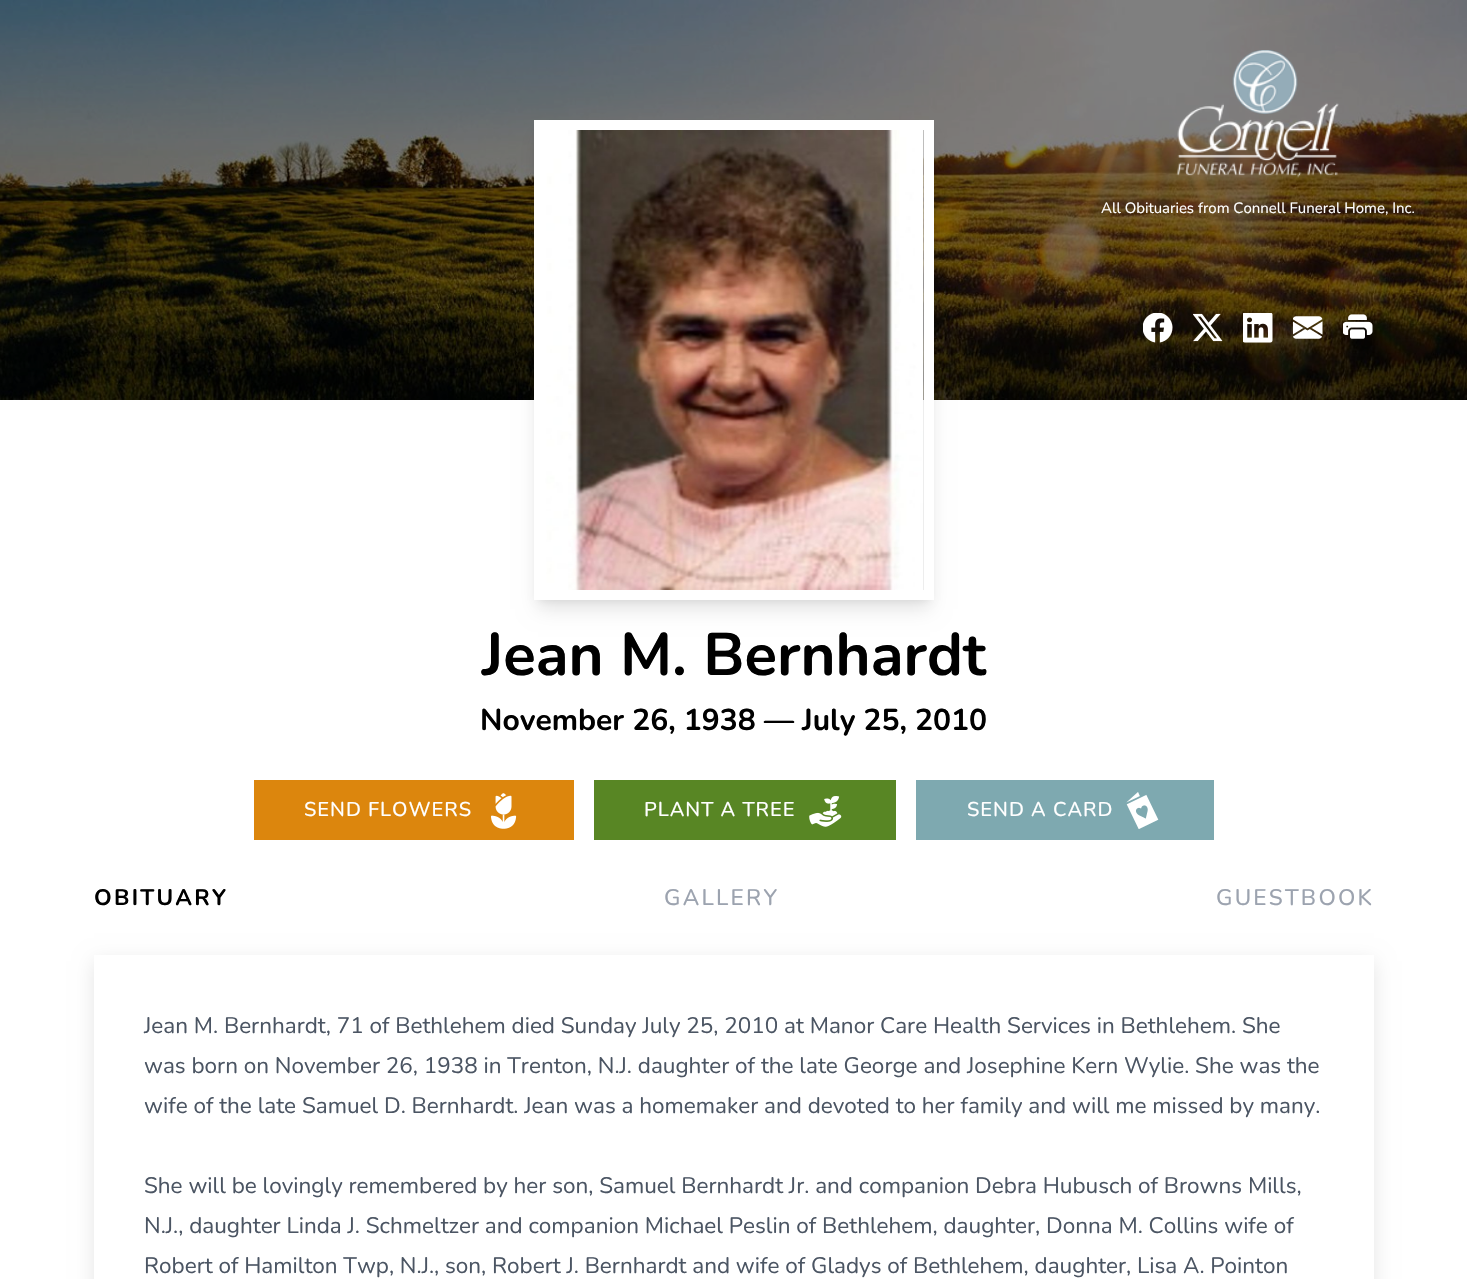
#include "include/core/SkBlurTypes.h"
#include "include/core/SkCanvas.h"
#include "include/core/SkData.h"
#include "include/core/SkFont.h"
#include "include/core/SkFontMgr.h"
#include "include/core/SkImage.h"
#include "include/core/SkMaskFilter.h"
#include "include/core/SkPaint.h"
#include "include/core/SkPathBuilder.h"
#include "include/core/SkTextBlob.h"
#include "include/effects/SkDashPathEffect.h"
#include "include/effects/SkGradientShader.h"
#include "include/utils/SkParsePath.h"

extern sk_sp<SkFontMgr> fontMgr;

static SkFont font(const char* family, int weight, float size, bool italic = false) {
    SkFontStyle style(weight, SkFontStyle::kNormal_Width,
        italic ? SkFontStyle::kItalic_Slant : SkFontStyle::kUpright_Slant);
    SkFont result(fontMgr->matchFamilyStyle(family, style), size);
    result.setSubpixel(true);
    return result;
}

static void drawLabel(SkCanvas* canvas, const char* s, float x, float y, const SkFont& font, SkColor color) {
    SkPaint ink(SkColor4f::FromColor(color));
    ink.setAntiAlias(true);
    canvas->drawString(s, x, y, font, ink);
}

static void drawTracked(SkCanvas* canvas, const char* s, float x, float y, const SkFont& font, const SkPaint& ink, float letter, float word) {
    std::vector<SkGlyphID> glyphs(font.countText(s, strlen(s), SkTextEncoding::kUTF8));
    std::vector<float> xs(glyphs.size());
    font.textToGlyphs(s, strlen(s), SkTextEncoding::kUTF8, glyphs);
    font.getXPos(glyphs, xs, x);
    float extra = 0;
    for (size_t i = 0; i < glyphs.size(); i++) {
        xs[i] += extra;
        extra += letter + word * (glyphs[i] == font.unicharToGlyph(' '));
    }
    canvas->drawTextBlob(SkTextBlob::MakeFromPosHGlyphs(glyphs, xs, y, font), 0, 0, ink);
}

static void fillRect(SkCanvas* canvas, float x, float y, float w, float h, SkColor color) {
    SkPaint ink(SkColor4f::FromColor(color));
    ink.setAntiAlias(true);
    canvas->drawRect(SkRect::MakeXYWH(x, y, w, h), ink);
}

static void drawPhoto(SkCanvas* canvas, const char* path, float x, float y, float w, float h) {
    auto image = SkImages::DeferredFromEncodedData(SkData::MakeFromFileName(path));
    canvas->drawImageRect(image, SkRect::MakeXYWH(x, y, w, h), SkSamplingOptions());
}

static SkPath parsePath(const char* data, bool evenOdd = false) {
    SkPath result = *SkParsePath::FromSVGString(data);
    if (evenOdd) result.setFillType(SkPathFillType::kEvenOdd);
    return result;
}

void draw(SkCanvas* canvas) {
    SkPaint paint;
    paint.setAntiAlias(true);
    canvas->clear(0xFFFFFFFF);
    drawPhoto(canvas, "assets/img1.png", 0, 0, 1467, 400);
    drawPhoto(canvas, "assets/img2.png", 1176, 50, 163, 128);
    SkFont font1 = font("Nunito", 400, 15);
    drawLabel(canvas, "All Obituaries from Connell Funeral Home, Inc.", 1101, 213, font1, 0xFFFFFFFF);
    drawPhoto(canvas, "assets/img3.png", 1143, 313, 30, 30);
    drawPhoto(canvas, "assets/img4.png", 1193, 313, 30, 29);
    drawPhoto(canvas, "assets/img5.png", 1243, 313, 30, 30);
    drawPhoto(canvas, "assets/img6.png", 1293, 316, 30, 23);
    drawPhoto(canvas, "assets/img7.png", 1343, 314, 30, 25);
    paint.setColor(0x1A000000);
    paint.setMaskFilter(SkMaskFilter::MakeBlur(kNormal_SkBlurStyle, 4));
    canvas->drawRect(SkRect::MakeXYWH(539, 130, 390, 470), paint);
    paint.setMaskFilter(nullptr);
    paint.setMaskFilter(SkMaskFilter::MakeBlur(kNormal_SkBlurStyle, 9.5f));
    canvas->drawRect(SkRect::MakeXYWH(538, 136, 392, 473), paint);
    paint.setMaskFilter(nullptr);
    paint.setStroke(true);
    paint.setStrokeWidth(10);
    paint.setColor(0xFFFFFFFF);
    canvas->drawRect(SkRect::MakeXYWH(539, 125, 390, 470), paint);
    drawPhoto(canvas, "assets/img8.png", 544, 130, 380, 460);
    SkFont font2 = font("Nunito", 700, 60);
    drawLabel(canvas, "Jean M. Bernhardt", 482, 675, font2, 0xFF000000);
    SkFont font3 = font("Nunito", 700, 30);
    drawLabel(canvas, "November 26, 1938 — July 25, 2010", 480, 730, font3, 0xFF000000);
    fillRect(canvas, 254, 780, 320, 60, 0xFFDC860D);
    SkFont font4 = font("Nunito", 500, 20);
    paint.setStroke(false);
    drawTracked(canvas, "SEND FLOWERS", 304, 816, font4, paint, 1, 0);
    drawPhoto(canvas, "assets/img9.png", 491, 793, 26, 36);
    fillRect(canvas, 594, 780, 302, 60, 0xFF588624);
    drawTracked(canvas, "PLANT A TREE", 644, 816, font4, paint, 1, 0);
    drawPhoto(canvas, "assets/img10.png", 809, 796, 33, 31);
    fillRect(canvas, 916, 780, 298, 60, 0xFF7EA9B0);
    drawTracked(canvas, "SEND A CARD", 967, 816, font4, paint, 1, 0);
    drawPhoto(canvas, "assets/img11.png", 1126, 792, 33, 37);
    SkFont font5 = font("Nunito", 700, 22.5f);
    paint.setColor(0xFF000000);
    drawTracked(canvas, "OBITUARY", 94, 905, font5, paint, 2.25f, 0);
    SkFont font6 = font("Nunito", 500, 22.5f);
    paint.setColor(0xFF9CA3AF);
    drawTracked(canvas, "GALLERY", 664, 905, font6, paint, 2.25f, 0);
    drawTracked(canvas, "GUESTBOOK", 1216, 905, font6, paint, 2.25f, 0);
    canvas->save();
    canvas->clipPath(parsePath("M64 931H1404V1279H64ZM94 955H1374V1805H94Z", true), true);
    paint.setColor(0x1A000000);
    paint.setMaskFilter(SkMaskFilter::MakeBlur(kNormal_SkBlurStyle, 9.5f));
    canvas->drawRect(SkRect::MakeXYWH(94, 961, 1280, 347), paint);
    paint.setMaskFilter(nullptr);
    canvas->restore();
    SkFont font7 = font("Nunito", 400, 22.5f);
    drawLabel(canvas, "Jean M. Bernhardt, 71 of Bethlehem died Sunday July 25, 2010 at Manor Care Health Services in Bethlehem. She", 144, 1033, font7, 0xFF4B5563);
    drawLabel(canvas, "was born on November 26, 1938 in Trenton, N.J. daughter of the late George and Josephine Kern Wylie. She was the", 144, 1073, font7, 0xFF4B5563);
    drawLabel(canvas, "wife of the late Samuel D. Bernhardt. Jean was a homemaker and devoted to her family and will me missed by many.", 144, 1113, font7, 0xFF4B5563);
    drawLabel(canvas, "She will be lovingly remembered by her son, Samuel Bernhardt Jr. and companion Debra Hubusch of Browns Mills,", 144, 1193, font7, 0xFF4B5563);
    drawLabel(canvas, "N.J., daughter Linda J. Schmeltzer and companion Michael Peslin of Bethlehem, daughter, Donna M. Collins wife of", 144, 1233, font7, 0xFF4B5563);
    drawLabel(canvas, "Robert of Hamilton Twp, N.J., son, Robert J. Bernhardt and wife of Gladys of Bethlehem, daughter, Lisa A. Pointon", 144, 1273, font7, 0xFF4B5563);
}
